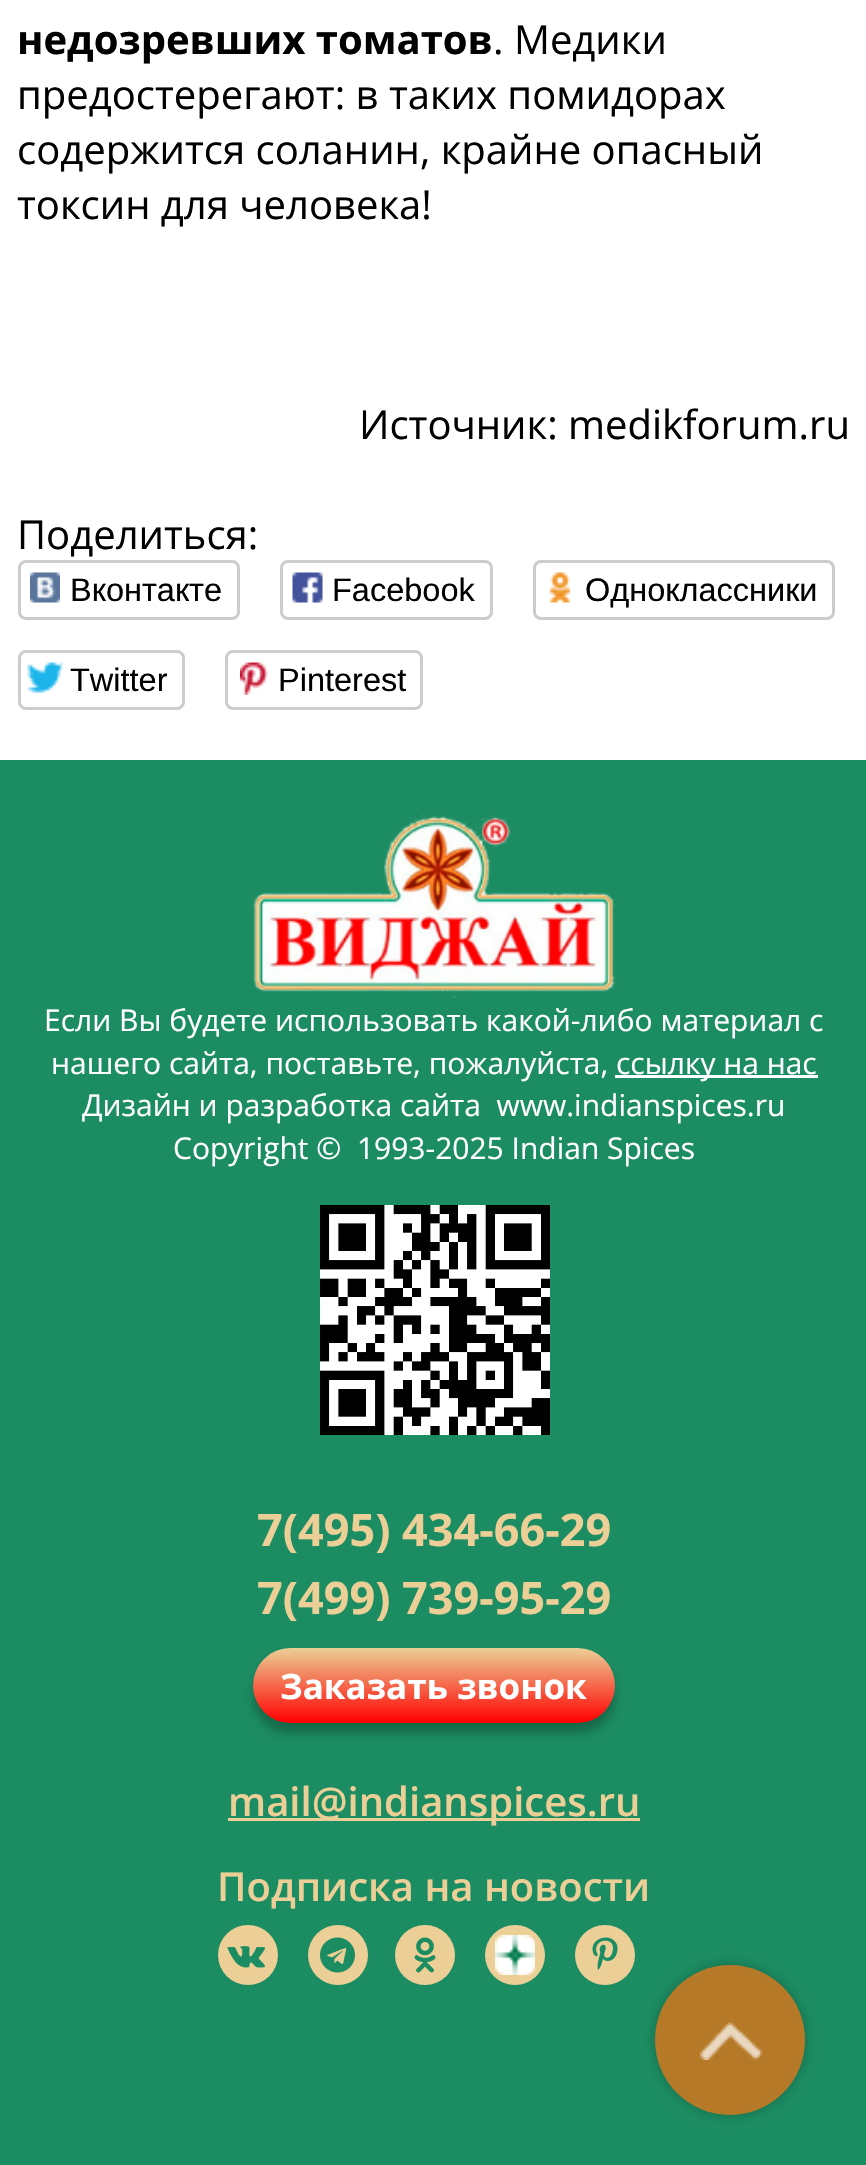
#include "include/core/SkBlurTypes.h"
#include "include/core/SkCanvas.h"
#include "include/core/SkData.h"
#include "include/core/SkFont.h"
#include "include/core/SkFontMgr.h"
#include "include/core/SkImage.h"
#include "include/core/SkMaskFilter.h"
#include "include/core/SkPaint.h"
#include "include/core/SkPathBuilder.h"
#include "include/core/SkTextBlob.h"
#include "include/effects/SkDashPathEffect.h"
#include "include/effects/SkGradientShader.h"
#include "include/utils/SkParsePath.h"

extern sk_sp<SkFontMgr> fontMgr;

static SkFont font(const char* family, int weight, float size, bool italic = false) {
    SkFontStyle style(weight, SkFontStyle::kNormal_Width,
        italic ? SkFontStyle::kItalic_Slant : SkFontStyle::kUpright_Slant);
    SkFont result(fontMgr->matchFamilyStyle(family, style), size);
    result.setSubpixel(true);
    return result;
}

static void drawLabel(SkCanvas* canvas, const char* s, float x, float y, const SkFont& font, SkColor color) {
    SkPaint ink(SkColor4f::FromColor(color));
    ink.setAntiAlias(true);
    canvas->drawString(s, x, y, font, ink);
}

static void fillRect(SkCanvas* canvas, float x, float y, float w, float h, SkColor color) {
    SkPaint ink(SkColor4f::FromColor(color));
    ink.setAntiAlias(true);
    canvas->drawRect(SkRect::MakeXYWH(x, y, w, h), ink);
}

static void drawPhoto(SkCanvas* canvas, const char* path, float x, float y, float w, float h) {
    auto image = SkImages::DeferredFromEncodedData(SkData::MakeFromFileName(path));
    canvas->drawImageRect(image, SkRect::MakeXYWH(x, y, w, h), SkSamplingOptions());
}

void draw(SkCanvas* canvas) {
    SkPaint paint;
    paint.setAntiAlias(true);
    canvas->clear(0xFFFFFFFF);
    SkFont font1 = font("Open Sans", 700, 40);
    drawLabel(canvas, "недозревших томатов", 17, 54, font1, 0xFF000000);
    SkFont font2 = font("Open Sans", 400, 40);
    drawLabel(canvas, ". Медики", 493, 54, font2, 0xFF000000);
    drawLabel(canvas, "предостерегают: в таких помидорах", 17, 109, font2, 0xFF000000);
    drawLabel(canvas, "содержится соланин, крайне опасный", 17, 164, font2, 0xFF000000);
    drawLabel(canvas, "токсин для человека!", 17, 219, font2, 0xFF000000);
    drawLabel(canvas, "Источник: medikforum.ru", 359, 439, font2, 0xFF000000);
    drawLabel(canvas, "Поделиться:", 17, 549, font2, 0xFF000000);
    paint.setStroke(true);
    paint.setStrokeWidth(3);
    paint.setColor(0xFFCCCCCC);
    canvas->drawRoundRect(SkRect::MakeXYWH(19.5f, 561.5f, 219, 57), 6.5f, 6.5f, paint);
    drawPhoto(canvas, "assets/img1.png", 30, 572, 30, 31);
    SkFont font3 = font("Liberation Sans", 400, 32.5f);
    drawLabel(canvas, "Вконтакте", 70, 601, font3, 0xFF000000);
    canvas->drawRoundRect(SkRect::MakeXYWH(281.5f, 561.5f, 210, 57), 6.5f, 6.5f, paint);
    drawPhoto(canvas, "assets/img2.png", 292, 572, 31, 31);
    drawLabel(canvas, "Facebook", 332, 601, font3, 0xFF000000);
    canvas->drawRoundRect(SkRect::MakeXYWH(534.5f, 561.5f, 299, 57), 6.5f, 6.5f, paint);
    drawPhoto(canvas, "assets/img3.png", 550, 572, 20, 31);
    drawLabel(canvas, "Одноклассники", 585, 601, font3, 0xFF000000);
    canvas->drawRoundRect(SkRect::MakeXYWH(19.5f, 651.5f, 164, 57), 6.5f, 6.5f, paint);
    drawPhoto(canvas, "assets/img4.png", 27, 662, 36, 31);
    drawLabel(canvas, "Twitter", 70, 691, font3, 0xFF000000);
    canvas->drawRoundRect(SkRect::MakeXYWH(226.5f, 651.5f, 195, 57), 6.5f, 6.5f, paint);
    drawPhoto(canvas, "assets/img5.png", 240, 662, 28, 33);
    drawLabel(canvas, "Pinterest", 278, 691, font3, 0xFF000000);
    fillRect(canvas, 0, 760, 866, 1405, 0xFF1C8C62);
    drawPhoto(canvas, "assets/img6.png", 252, 813, 364, 185);
    SkFont font4 = font("Open Sans", 400, 30);
    drawLabel(canvas, "Если Вы будете использовать какой-либо материал с", 44, 1031, font4, 0xFFFFFFFF);
    drawLabel(canvas, "нашего сайта, поставьте, пожалуйста,", 51, 1074, font4, 0xFFFFFFFF);
    fillRect(canvas, 615, 1075, 203, 3, 0xFFFFFFFF);
    drawLabel(canvas, "ссылку на нас", 616, 1074, font4, 0xFFFFFFFF);
    drawLabel(canvas, "Дизайн и разработка сайта  www.indianspices.ru", 82, 1116, font4, 0xFFFFFFFF);
    drawLabel(canvas, "Copyright ©  1993-2025 Indian Spices", 173, 1159, font4, 0xFFFFFFFF);
    drawPhoto(canvas, "assets/img7.png", 320, 1205, 230, 230);
    SkFont font5 = font("Open Sans", 700, 45);
    drawLabel(canvas, "7(495) 434-66-29", 257, 1546, font5, 0xFFECCF96);
    drawLabel(canvas, "7(499) 739-95-29", 257, 1614, font5, 0xFFECCF96);
    paint.setStroke(false);
    paint.setColor(0x40000000);
    paint.setMaskFilter(SkMaskFilter::MakeBlur(kNormal_SkBlurStyle, 5));
    canvas->drawRoundRect(SkRect::MakeXYWH(253, 1658, 362, 75), 37.5f, 37.5f, paint);
    paint.setMaskFilter(nullptr);
    {
        const SkColor colors[] = {0xFFECCF96, 0xFFFF0000};
        const float stops[] = {0, 1};
        const SkPoint ends[] = {{434, 1648}, {434, 1723}};
        paint.setShader(SkGradientShader::MakeLinear(ends, colors, stops, 2, SkTileMode::kClamp));
        paint.setAlpha(255);
    }
    canvas->drawRoundRect(SkRect::MakeXYWH(253, 1648, 362, 75), 37.5f, 37.5f, paint);
    SkFont font6 = font("Open Sans", 700, 35);
    drawLabel(canvas, "Заказать звонок", 280, 1699, font6, 0xFFFFFFFF);
    fillRect(canvas, 228, 1818, 412, 3, 0xFFECCF96);
    SkFont font7 = font("Open Sans", 600, 40);
    drawLabel(canvas, "mail@indianspices.ru", 228, 1816, font7, 0xFFECCF96);
    drawLabel(canvas, "Подписка на новости", 217, 1901, font7, 0xFFECCF96);
    paint.setShader(nullptr);
    paint.setColor(0xFFECCF96);
    canvas->drawCircle(248, 1955, 30, paint);
    drawPhoto(canvas, "assets/img8.png", 227, 1946, 38, 22);
    canvas->drawCircle(338, 1955, 30, paint);
    drawPhoto(canvas, "assets/img9.png", 320, 1937, 35, 36);
    canvas->drawCircle(425, 1955, 30, paint);
    drawPhoto(canvas, "assets/img10.png", 414, 1937, 22, 36);
    canvas->drawCircle(515, 1955, 30, paint);
    drawPhoto(canvas, "assets/img11.png", 495, 1935, 40, 40);
    canvas->drawCircle(605, 1955, 30, paint);
    drawPhoto(canvas, "assets/img12.png", 592, 1937, 26, 33);
    paint.setColor(0x59082A1D);
    paint.setMaskFilter(SkMaskFilter::MakeBlur(kNormal_SkBlurStyle, 6));
    canvas->drawRoundRect(SkRect::MakeXYWH(655, 1965, 150, 150), 75, 75, paint);
    paint.setMaskFilter(nullptr);
    paint.setColor(0xFFB67927);
    canvas->drawCircle(730, 2040, 75, paint);
    drawPhoto(canvas, "assets/img13.png", 700, 2022, 63, 38);
}
